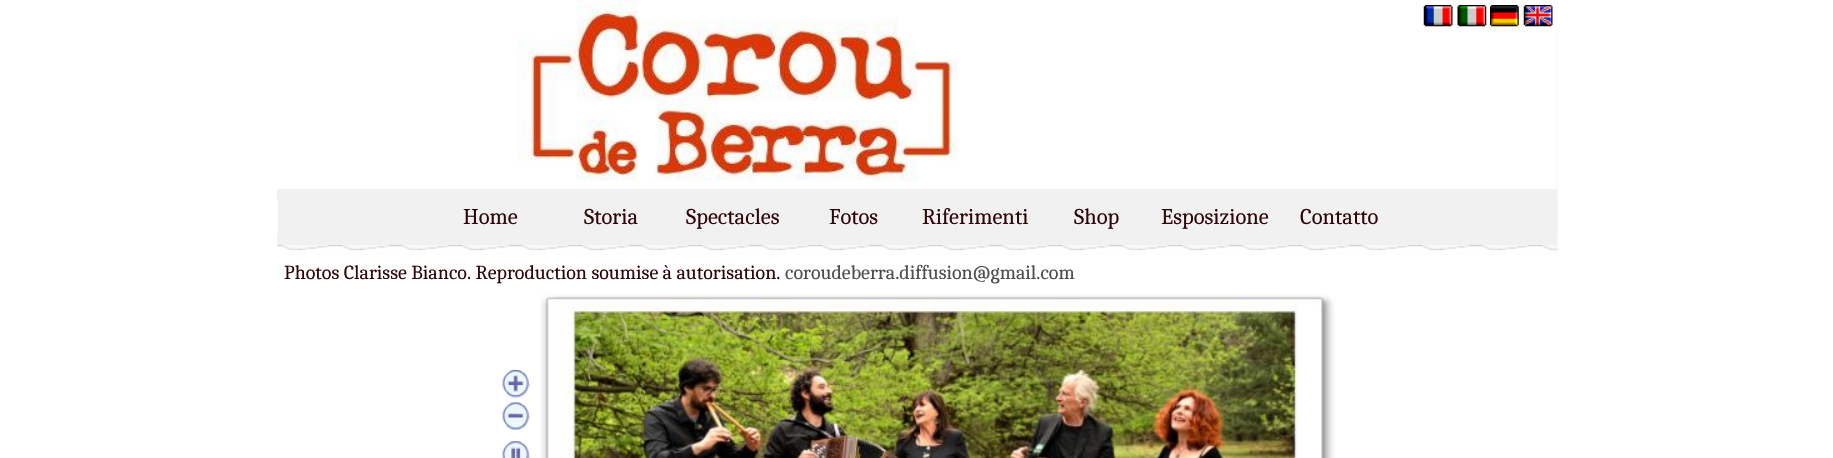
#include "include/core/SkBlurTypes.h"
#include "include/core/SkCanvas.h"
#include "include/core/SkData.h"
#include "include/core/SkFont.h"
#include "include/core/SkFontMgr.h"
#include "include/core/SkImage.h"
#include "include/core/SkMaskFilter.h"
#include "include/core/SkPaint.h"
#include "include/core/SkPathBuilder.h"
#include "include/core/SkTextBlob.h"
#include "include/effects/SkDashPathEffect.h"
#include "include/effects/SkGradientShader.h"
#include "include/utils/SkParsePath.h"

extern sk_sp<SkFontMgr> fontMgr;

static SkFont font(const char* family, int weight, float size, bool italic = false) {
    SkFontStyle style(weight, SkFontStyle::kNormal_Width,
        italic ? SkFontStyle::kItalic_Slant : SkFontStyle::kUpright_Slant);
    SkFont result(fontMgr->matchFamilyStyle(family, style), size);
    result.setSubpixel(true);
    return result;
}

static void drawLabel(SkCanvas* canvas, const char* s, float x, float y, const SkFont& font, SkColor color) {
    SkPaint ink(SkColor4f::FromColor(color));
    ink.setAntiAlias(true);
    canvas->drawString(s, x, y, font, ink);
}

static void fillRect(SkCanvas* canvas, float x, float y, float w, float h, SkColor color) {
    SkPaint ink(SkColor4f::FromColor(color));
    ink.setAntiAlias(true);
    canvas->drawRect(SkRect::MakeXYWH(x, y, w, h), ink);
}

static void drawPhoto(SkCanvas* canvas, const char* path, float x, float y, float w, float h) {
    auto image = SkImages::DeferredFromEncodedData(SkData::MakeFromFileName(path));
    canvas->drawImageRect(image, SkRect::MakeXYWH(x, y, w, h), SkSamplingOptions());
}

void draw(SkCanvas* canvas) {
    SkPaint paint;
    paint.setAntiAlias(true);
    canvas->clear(0xFFFFFFFF);
    fillRect(canvas, 278, 245, 1280, 9, 0xFFF4F4F4);
    fillRect(canvas, 278, 0, 1280, 189, 0xFFF8F8F8);
    drawPhoto(canvas, "assets/img1.png", 278, 0, 1279, 189);
    drawPhoto(canvas, "assets/img2.png", 1423, 5, 30, 22);
    drawPhoto(canvas, "assets/img3.png", 1457, 5, 30, 22);
    drawPhoto(canvas, "assets/img4.png", 1490, 5, 29, 22);
    drawPhoto(canvas, "assets/img5.png", 1523, 5, 30, 22);
    fillRect(canvas, 1557, 189, 1, 56, 0xFFF8F8F8);
    fillRect(canvas, 277, 189, 1280, 11, 0xFFF1F1F1);
    fillRect(canvas, 278, 200, 1280, 34, 0xFFF1F1F1);
    SkFont font1 = font("Caladea", 400, 22.5f);
    drawLabel(canvas, "Home", 463, 224, font1, 0xFF300408);
    drawLabel(canvas, "Storia", 584, 224, font1, 0xFF300408);
    drawLabel(canvas, "Spectacles", 686, 224, font1, 0xFF300408);
    drawLabel(canvas, "Fotos", 829, 224, font1, 0xFF300408);
    drawLabel(canvas, "Riferimenti", 922, 224, font1, 0xFF300408);
    drawLabel(canvas, "Shop", 1074, 224, font1, 0xFF300408);
    drawLabel(canvas, "Esposizione", 1161, 224, font1, 0xFF300408);
    drawLabel(canvas, "Contatto", 1300, 224, font1, 0xFF300408);
    fillRect(canvas, 277, 234, 1280, 11, 0xFFF1F1F1);
    drawPhoto(canvas, "assets/img6.png", 277, 245, 1281, 9);
    SkFont font2 = font("Caladea", 400, 20);
    drawLabel(canvas, "Photos Clarisse Bianco. Reproduction soumise à autorisation.", 284, 279, font2, 0xFF300408);
    drawLabel(canvas, "coroudeberra.diffusion@gmail.com", 785, 279, font2, 0xFF4D4D4D);
    drawPhoto(canvas, "assets/img7.png", 502, 370, 28, 28);
    drawPhoto(canvas, "assets/img8.png", 502, 402, 28, 28);
    drawPhoto(canvas, "assets/img9.png", 502, 441, 28, 17);
    drawPhoto(canvas, "assets/img10.png", 540, 293, 795, 165);
}
